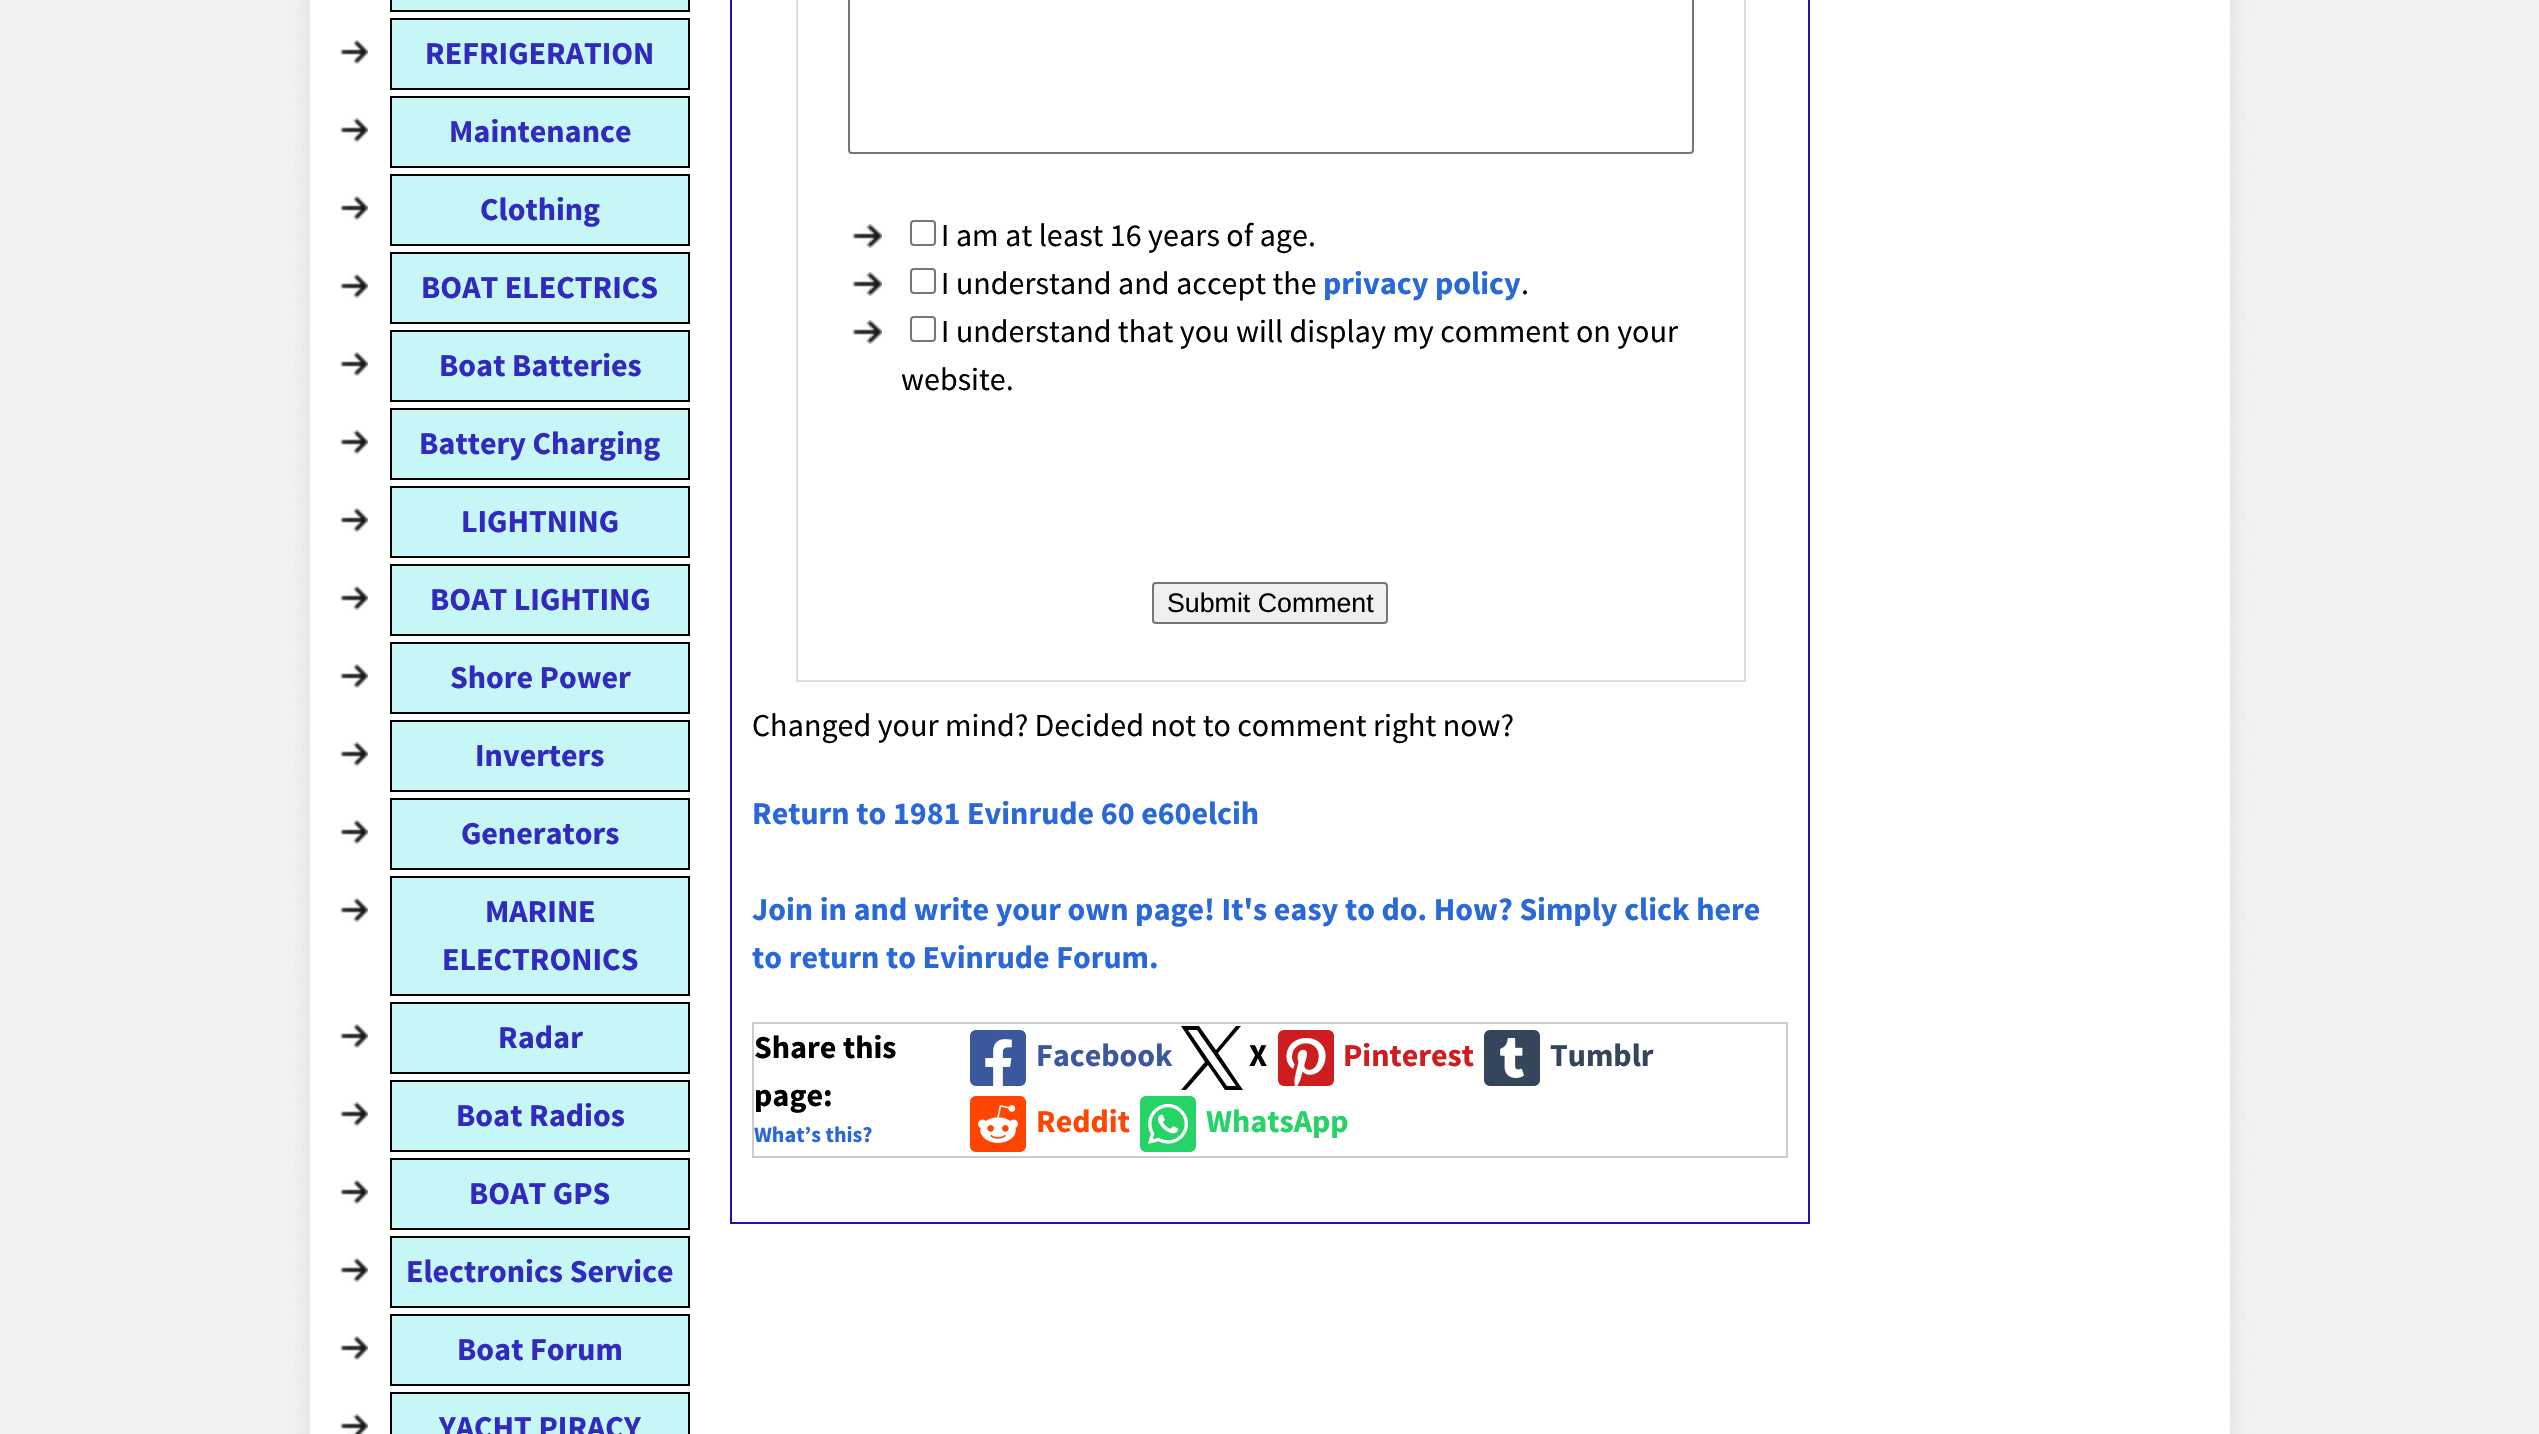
#include "include/core/SkBlurTypes.h"
#include "include/core/SkCanvas.h"
#include "include/core/SkData.h"
#include "include/core/SkFont.h"
#include "include/core/SkFontMgr.h"
#include "include/core/SkImage.h"
#include "include/core/SkMaskFilter.h"
#include "include/core/SkPaint.h"
#include "include/core/SkPathBuilder.h"
#include "include/core/SkTextBlob.h"
#include "include/effects/SkDashPathEffect.h"
#include "include/effects/SkGradientShader.h"
#include "include/utils/SkParsePath.h"

extern sk_sp<SkFontMgr> fontMgr;

static SkFont font(const char* family, int weight, float size, bool italic = false) {
    SkFontStyle style(weight, SkFontStyle::kNormal_Width,
        italic ? SkFontStyle::kItalic_Slant : SkFontStyle::kUpright_Slant);
    SkFont result(fontMgr->matchFamilyStyle(family, style), size);
    result.setSubpixel(true);
    return result;
}

static void drawLabel(SkCanvas* canvas, const char* s, float x, float y, const SkFont& font, SkColor color) {
    SkPaint ink(SkColor4f::FromColor(color));
    ink.setAntiAlias(true);
    canvas->drawString(s, x, y, font, ink);
}

static void drawPhoto(SkCanvas* canvas, const char* path, float x, float y, float w, float h) {
    auto image = SkImages::DeferredFromEncodedData(SkData::MakeFromFileName(path));
    canvas->drawImageRect(image, SkRect::MakeXYWH(x, y, w, h), SkSamplingOptions());
}

static SkPath parsePath(const char* data, bool evenOdd = false) {
    SkPath result = *SkParsePath::FromSVGString(data);
    if (evenOdd) result.setFillType(SkPathFillType::kEvenOdd);
    return result;
}

void draw(SkCanvas* canvas) {
    SkPaint paint;
    paint.setAntiAlias(true);
    canvas->clear(0xFFF1F1F1);
    drawPhoto(canvas, "assets/img1.png", 290, 0, 1960, 1434);
    paint.setColor(0xFFC6F7F6);
    canvas->drawRect(SkRect::MakeXYWH(391, -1, 298, 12), paint);
    paint.setStroke(true);
    paint.setStrokeWidth(2);
    paint.setColor(0xFF000000);
    canvas->drawRect(SkRect::MakeXYWH(391, -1, 298, 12), paint);
    drawPhoto(canvas, "assets/img2.png", 340, 40, 28, 24);
    paint.setStroke(false);
    paint.setColor(0xFFC6F7F6);
    canvas->drawRect(SkRect::MakeXYWH(391, 19, 298, 70), paint);
    paint.setStroke(true);
    paint.setColor(0xFF000000);
    canvas->drawRect(SkRect::MakeXYWH(391, 19, 298, 70), paint);
    SkFont font1 = font("Source Sans Pro", 700, 32);
    drawLabel(canvas, "REFRIGERATION", 425, 64, font1, 0xFF322ABF);
    drawPhoto(canvas, "assets/img2.png", 340, 118, 28, 24);
    paint.setStroke(false);
    paint.setColor(0xFFC6F7F6);
    canvas->drawRect(SkRect::MakeXYWH(391, 97, 298, 70), paint);
    paint.setStroke(true);
    paint.setColor(0xFF000000);
    canvas->drawRect(SkRect::MakeXYWH(391, 97, 298, 70), paint);
    drawLabel(canvas, "Maintenance", 449, 142, font1, 0xFF322ABF);
    drawPhoto(canvas, "assets/img2.png", 340, 196, 28, 24);
    paint.setStroke(false);
    paint.setColor(0xFFC6F7F6);
    canvas->drawRect(SkRect::MakeXYWH(391, 175, 298, 70), paint);
    paint.setStroke(true);
    paint.setColor(0xFF000000);
    canvas->drawRect(SkRect::MakeXYWH(391, 175, 298, 70), paint);
    drawLabel(canvas, "Clothing", 480, 220, font1, 0xFF322ABF);
    drawPhoto(canvas, "assets/img2.png", 340, 274, 28, 24);
    paint.setStroke(false);
    paint.setColor(0xFFC6F7F6);
    canvas->drawRect(SkRect::MakeXYWH(391, 253, 298, 70), paint);
    paint.setStroke(true);
    paint.setColor(0xFF000000);
    canvas->drawRect(SkRect::MakeXYWH(391, 253, 298, 70), paint);
    drawLabel(canvas, "BOAT ELECTRICS", 421, 298, font1, 0xFF322ABF);
    drawPhoto(canvas, "assets/img2.png", 340, 352, 28, 24);
    paint.setStroke(false);
    paint.setColor(0xFFC6F7F6);
    canvas->drawRect(SkRect::MakeXYWH(391, 331, 298, 70), paint);
    paint.setStroke(true);
    paint.setColor(0xFF000000);
    canvas->drawRect(SkRect::MakeXYWH(391, 331, 298, 70), paint);
    drawLabel(canvas, "Boat Batteries", 439, 376, font1, 0xFF322ABF);
    drawPhoto(canvas, "assets/img2.png", 340, 430, 28, 24);
    paint.setStroke(false);
    paint.setColor(0xFFC6F7F6);
    canvas->drawRect(SkRect::MakeXYWH(391, 409, 298, 70), paint);
    paint.setStroke(true);
    paint.setColor(0xFF000000);
    canvas->drawRect(SkRect::MakeXYWH(391, 409, 298, 70), paint);
    drawLabel(canvas, "Battery Charging", 419, 454, font1, 0xFF322ABF);
    drawPhoto(canvas, "assets/img2.png", 340, 508, 28, 24);
    paint.setStroke(false);
    paint.setColor(0xFFC6F7F6);
    canvas->drawRect(SkRect::MakeXYWH(391, 487, 298, 70), paint);
    paint.setStroke(true);
    paint.setColor(0xFF000000);
    canvas->drawRect(SkRect::MakeXYWH(391, 487, 298, 70), paint);
    drawLabel(canvas, "LIGHTNING", 461, 532, font1, 0xFF322ABF);
    drawPhoto(canvas, "assets/img2.png", 340, 586, 28, 24);
    paint.setStroke(false);
    paint.setColor(0xFFC6F7F6);
    canvas->drawRect(SkRect::MakeXYWH(391, 565, 298, 70), paint);
    paint.setStroke(true);
    paint.setColor(0xFF000000);
    canvas->drawRect(SkRect::MakeXYWH(391, 565, 298, 70), paint);
    drawLabel(canvas, "BOAT LIGHTING", 430, 610, font1, 0xFF322ABF);
    drawPhoto(canvas, "assets/img2.png", 340, 664, 28, 24);
    paint.setStroke(false);
    paint.setColor(0xFFC6F7F6);
    canvas->drawRect(SkRect::MakeXYWH(391, 643, 298, 70), paint);
    paint.setStroke(true);
    paint.setColor(0xFF000000);
    canvas->drawRect(SkRect::MakeXYWH(391, 643, 298, 70), paint);
    drawLabel(canvas, "Shore Power", 450, 688, font1, 0xFF322ABF);
    drawPhoto(canvas, "assets/img2.png", 340, 742, 28, 24);
    paint.setStroke(false);
    paint.setColor(0xFFC6F7F6);
    canvas->drawRect(SkRect::MakeXYWH(391, 721, 298, 70), paint);
    paint.setStroke(true);
    paint.setColor(0xFF000000);
    canvas->drawRect(SkRect::MakeXYWH(391, 721, 298, 70), paint);
    drawLabel(canvas, "Inverters", 475, 766, font1, 0xFF322ABF);
    drawPhoto(canvas, "assets/img2.png", 340, 820, 28, 24);
    paint.setStroke(false);
    paint.setColor(0xFFC6F7F6);
    canvas->drawRect(SkRect::MakeXYWH(391, 799, 298, 70), paint);
    paint.setStroke(true);
    paint.setColor(0xFF000000);
    canvas->drawRect(SkRect::MakeXYWH(391, 799, 298, 70), paint);
    drawLabel(canvas, "Generators", 461, 844, font1, 0xFF322ABF);
    drawPhoto(canvas, "assets/img2.png", 340, 898, 28, 24);
    paint.setStroke(false);
    paint.setColor(0xFFC6F7F6);
    canvas->drawRect(SkRect::MakeXYWH(391, 877, 298, 118), paint);
    paint.setStroke(true);
    paint.setColor(0xFF000000);
    canvas->drawRect(SkRect::MakeXYWH(391, 877, 298, 118), paint);
    drawLabel(canvas, "MARINE", 485, 922, font1, 0xFF322ABF);
    drawLabel(canvas, "ELECTRONICS", 442, 970, font1, 0xFF322ABF);
    drawPhoto(canvas, "assets/img2.png", 340, 1024, 28, 24);
    paint.setStroke(false);
    paint.setColor(0xFFC6F7F6);
    canvas->drawRect(SkRect::MakeXYWH(391, 1003, 298, 70), paint);
    paint.setStroke(true);
    paint.setColor(0xFF000000);
    canvas->drawRect(SkRect::MakeXYWH(391, 1003, 298, 70), paint);
    drawLabel(canvas, "Radar", 498, 1048, font1, 0xFF322ABF);
    drawPhoto(canvas, "assets/img2.png", 340, 1102, 28, 24);
    paint.setStroke(false);
    paint.setColor(0xFFC6F7F6);
    canvas->drawRect(SkRect::MakeXYWH(391, 1081, 298, 70), paint);
    paint.setStroke(true);
    paint.setColor(0xFF000000);
    canvas->drawRect(SkRect::MakeXYWH(391, 1081, 298, 70), paint);
    drawLabel(canvas, "Boat Radios", 456, 1126, font1, 0xFF322ABF);
    drawPhoto(canvas, "assets/img2.png", 340, 1180, 28, 24);
    paint.setStroke(false);
    paint.setColor(0xFFC6F7F6);
    canvas->drawRect(SkRect::MakeXYWH(391, 1159, 298, 70), paint);
    paint.setStroke(true);
    paint.setColor(0xFF000000);
    canvas->drawRect(SkRect::MakeXYWH(391, 1159, 298, 70), paint);
    drawLabel(canvas, "BOAT GPS", 469, 1204, font1, 0xFF322ABF);
    drawPhoto(canvas, "assets/img2.png", 340, 1258, 28, 24);
    paint.setStroke(false);
    paint.setColor(0xFFC6F7F6);
    canvas->drawRect(SkRect::MakeXYWH(391, 1237, 298, 70), paint);
    paint.setStroke(true);
    paint.setColor(0xFF000000);
    canvas->drawRect(SkRect::MakeXYWH(391, 1237, 298, 70), paint);
    drawLabel(canvas, "Electronics Service", 406, 1282, font1, 0xFF322ABF);
    drawPhoto(canvas, "assets/img2.png", 340, 1336, 28, 24);
    paint.setStroke(false);
    paint.setColor(0xFFC6F7F6);
    canvas->drawRect(SkRect::MakeXYWH(391, 1315, 298, 70), paint);
    paint.setStroke(true);
    paint.setColor(0xFF000000);
    canvas->drawRect(SkRect::MakeXYWH(391, 1315, 298, 70), paint);
    drawLabel(canvas, "Boat Forum", 457, 1360, font1, 0xFF322ABF);
    drawPhoto(canvas, "assets/img3.png", 340, 1414, 28, 20);
    paint.setStroke(false);
    paint.setColor(0xFFC6F7F6);
    canvas->drawRect(SkRect::MakeXYWH(391, 1393, 298, 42), paint);
    paint.setStroke(true);
    paint.setColor(0xFF000000);
    canvas->drawRect(SkRect::MakeXYWH(391, 1393, 298, 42), paint);
    drawLabel(canvas, "YACHT PIRACY", 439, 1438, font1, 0xFF322ABF);
    paint.setColor(0xFF1C13B0);
    canvas->drawRect(SkRect::MakeXYWH(731, -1, 1078, 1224), paint);
    paint.setColor(0xFFDDDDDD);
    canvas->drawRect(SkRect::MakeXYWH(797, -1, 948, 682), paint);
    paint.setColor(0xFF767676);
    canvas->drawRoundRect(SkRect::MakeXYWH(849, -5, 844, 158), 3, 3, paint);
    drawPhoto(canvas, "assets/img4.png", 852, 224, 30, 24);
    canvas->drawRoundRect(SkRect::MakeXYWH(911, 221, 24, 24), 3, 3, paint);
    SkFont font2 = font("Source Sans Pro", 400, 32);
    drawLabel(canvas, "I am at least 16 years of age.", 941, 246, font2, 0xFF000000);
    drawPhoto(canvas, "assets/img4.png", 852, 272, 30, 24);
    canvas->drawRoundRect(SkRect::MakeXYWH(911, 269, 24, 24), 3, 3, paint);
    drawLabel(canvas, "I understand and accept the", 941, 294, font2, 0xFF000000);
    drawLabel(canvas, "privacy policy", 1323, 294, font1, 0xFF2868D8);
    drawLabel(canvas, ".", 1521, 294, font2, 0xFF000000);
    drawPhoto(canvas, "assets/img4.png", 852, 320, 30, 24);
    canvas->drawRoundRect(SkRect::MakeXYWH(911, 317, 24, 24), 3, 3, paint);
    drawLabel(canvas, "I understand that you will display my comment on your", 941, 342, font2, 0xFF000000);
    drawLabel(canvas, "website.", 901, 390, font2, 0xFF000000);
    paint.setStroke(false);
    paint.setColor(0xFFEFEFEF);
    canvas->drawRoundRect(SkRect::MakeXYWH(1153, 583, 234, 40), 3, 3, paint);
    paint.setStroke(true);
    paint.setColor(0xFF767676);
    canvas->drawRoundRect(SkRect::MakeXYWH(1153, 583, 234, 40), 3, 3, paint);
    SkFont font3 = font("Liberation Sans", 400, 26.75f);
    drawLabel(canvas, "Submit Comment", 1167, 612, font3, 0xFF000000);
    drawLabel(canvas, "Changed your mind? Decided not to comment right now?", 752, 736, font2, 0xFF000000);
    drawLabel(canvas, "Return to 1981 Evinrude 60 e60elcih", 752, 824, font1, 0xFF2868D8);
    drawLabel(canvas, "Join in and write your own page! It's easy to do. How? Simply click here", 752, 920, font1, 0xFF2868D8);
    drawLabel(canvas, "to return to Evinrude Forum.", 752, 968, font1, 0xFF2868D8);
    paint.setColor(0xFFCCCCCC);
    canvas->drawRect(SkRect::MakeXYWH(753, 1023, 1034, 134), paint);
    drawLabel(canvas, "Share this", 754, 1058, font1, 0xFF000000);
    drawLabel(canvas, "page:", 754, 1106, font1, 0xFF000000);
    SkFont font4 = font("Source Sans Pro", 700, 22);
    drawLabel(canvas, "What’s this?", 754, 1142, font4, 0xFF2868D8);
    drawPhoto(canvas, "assets/img5.png", 970, 1030, 56, 56);
    drawLabel(canvas, "Facebook", 1036, 1066, font1, 0xFF3B579D);
    paint.setStroke(false);
    paint.setColor(0xFF000000);
    canvas->drawPath(parsePath("M1218 1053L1241 1026H1236L1216 1050L1199 1026H1181L1205 1062L1181 1090H1186L1208 1065L1225 1090H1243ZM1210 1062L1188 1030H1197L1236 1086H1227Z"), paint);
    drawLabel(canvas, "X", 1249, 1066, font1, 0xFF000000);
    drawPhoto(canvas, "assets/img6.png", 1278, 1030, 56, 56);
    drawLabel(canvas, "Pinterest", 1343, 1066, font1, 0xFFCD1D1F);
    drawPhoto(canvas, "assets/img7.png", 1484, 1030, 56, 56);
    drawLabel(canvas, "Tumblr", 1550, 1066, font1, 0xFF35465C);
    drawPhoto(canvas, "assets/img8.png", 970, 1096, 56, 56);
    drawLabel(canvas, "Reddit", 1036, 1132, font1, 0xFFFF4500);
    drawPhoto(canvas, "assets/img9.png", 1140, 1096, 56, 56);
    drawLabel(canvas, "WhatsApp", 1206, 1132, font1, 0xFF25D366);
}
